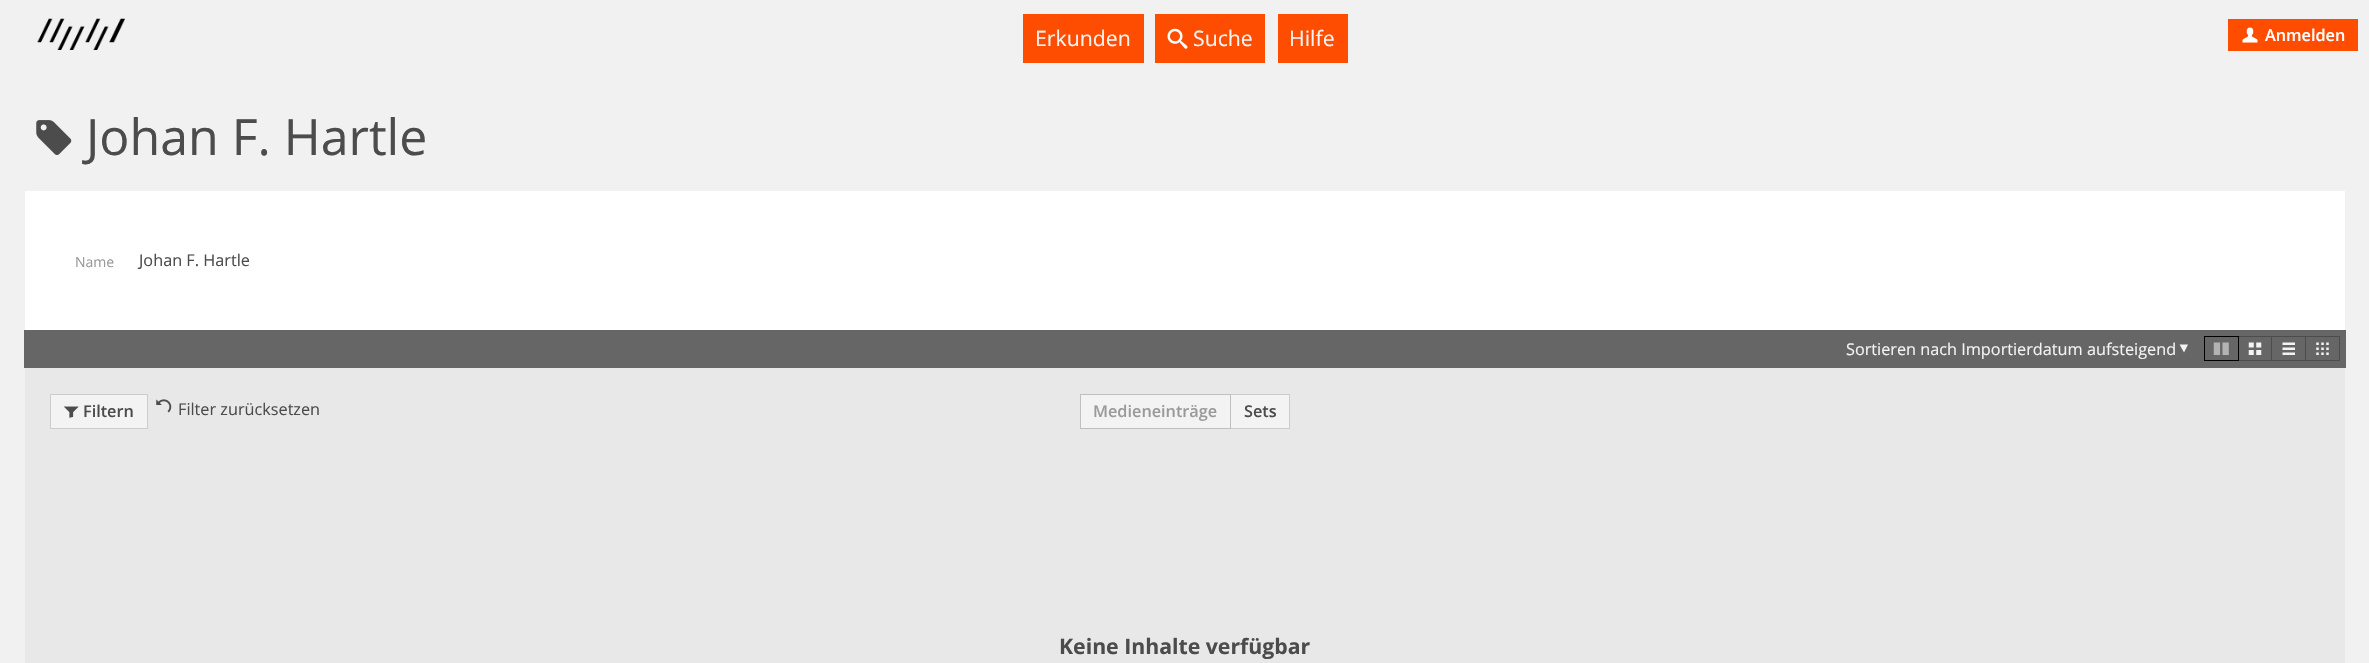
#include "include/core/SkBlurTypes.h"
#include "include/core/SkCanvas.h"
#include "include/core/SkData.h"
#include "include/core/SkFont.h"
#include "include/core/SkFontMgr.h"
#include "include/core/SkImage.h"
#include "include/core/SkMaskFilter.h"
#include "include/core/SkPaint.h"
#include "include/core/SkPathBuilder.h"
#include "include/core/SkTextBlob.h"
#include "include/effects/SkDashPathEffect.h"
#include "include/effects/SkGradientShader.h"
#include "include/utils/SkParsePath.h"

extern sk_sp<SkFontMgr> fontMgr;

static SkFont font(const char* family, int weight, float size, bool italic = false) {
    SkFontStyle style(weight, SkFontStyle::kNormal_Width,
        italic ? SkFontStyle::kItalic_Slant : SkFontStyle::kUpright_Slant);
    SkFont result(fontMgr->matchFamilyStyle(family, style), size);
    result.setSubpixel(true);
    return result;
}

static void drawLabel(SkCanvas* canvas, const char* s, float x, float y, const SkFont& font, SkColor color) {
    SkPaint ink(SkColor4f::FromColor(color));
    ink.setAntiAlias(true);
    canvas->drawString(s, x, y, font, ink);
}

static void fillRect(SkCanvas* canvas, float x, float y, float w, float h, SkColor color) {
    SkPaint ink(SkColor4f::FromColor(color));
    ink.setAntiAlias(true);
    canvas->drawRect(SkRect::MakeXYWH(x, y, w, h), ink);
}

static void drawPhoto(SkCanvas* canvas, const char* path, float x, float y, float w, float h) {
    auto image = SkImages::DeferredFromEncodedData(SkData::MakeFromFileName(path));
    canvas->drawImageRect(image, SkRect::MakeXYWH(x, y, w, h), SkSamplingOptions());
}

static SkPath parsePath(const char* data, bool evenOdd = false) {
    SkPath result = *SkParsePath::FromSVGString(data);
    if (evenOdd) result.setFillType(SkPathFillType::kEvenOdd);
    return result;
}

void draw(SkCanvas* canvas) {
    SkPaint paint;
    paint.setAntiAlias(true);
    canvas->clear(0xFFF1F1F1);
    drawPhoto(canvas, "assets/img1.png", 37, 18, 88, 32);
    fillRect(canvas, 1023, 14, 121, 49, 0xFFFF4D00);
    SkFont font1 = font("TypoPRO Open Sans", 400, 21.25f);
    drawLabel(canvas, "Erkunden", 1035, 46, font1, 0xFFF3F3F3);
    fillRect(canvas, 1155, 14, 110, 49, 0xFFFF4D00);
    drawPhoto(canvas, "assets/img2.png", 1167, 28, 21, 21);
    drawLabel(canvas, "Suche", 1193, 46, font1, 0xFFF3F3F3);
    fillRect(canvas, 1278, 14, 70, 49, 0xFFFF4D00);
    drawLabel(canvas, "Hilfe", 1289, 46, font1, 0xFFF3F3F3);
    fillRect(canvas, 2228, 19, 130, 32, 0xFFFF4D00);
    drawPhoto(canvas, "assets/img3.png", 2242, 27, 16, 16);
    SkFont font2 = font("TypoPRO Open Sans", 600, 16.25f);
    drawLabel(canvas, "Anmelden", 2265, 41, font2, 0xFFFFFFFF);
    drawPhoto(canvas, "assets/img4.png", 36, 120, 36, 35);
    SkFont font3 = font("TypoPRO Open Sans", 400, 50);
    drawLabel(canvas, "Johan F. Hartle", 86, 155, font3, 0xFF4C4C4C);
    fillRect(canvas, 25, 191, 2320, 139, 0xFFFFFFFF);
    SkFont font4 = font("TypoPRO Open Sans", 400, 14);
    drawLabel(canvas, "Name", 75, 267, font4, 0xFF9A9A9A);
    SkFont font5 = font("TypoPRO Open Sans", 400, 16.25f);
    drawLabel(canvas, "Johan F. Hartle", 139, 266, font5, 0xFF4C4C4C);
    fillRect(canvas, 25, 368, 2320, 295, 0xFFE8E8E8);
    fillRect(canvas, 24, 330, 2322, 38, 0xFF666666);
    drawLabel(canvas, "Sortieren nach Importierdatum aufsteigend", 1846, 355, font5, 0xFFF3F3F3);
    paint.setColor(0xFFF3F3F3);
    canvas->drawPath(parsePath("M2188 344.5H2179.5L2184 352.5Z"), paint);
    paint.setStroke(true);
    paint.setStrokeWidth(1);
    paint.setColor(0xFF4C4C4C);
    canvas->drawRect(SkRect::MakeXYWH(2238.5f, 336.5f, 34, 24), paint);
    paint.setColor(0xFF000000);
    canvas->drawRect(SkRect::MakeXYWH(2204.5f, 336.5f, 34, 24), paint);
    drawPhoto(canvas, "assets/img5.png", 2213, 342, 16, 13);
    drawPhoto(canvas, "assets/img6.png", 2248, 342, 14, 13);
    fillRect(canvas, 2272, 337, 1, 23, 0xFF666666);
    paint.setColor(0xFF4C4C4C);
    canvas->drawRect(SkRect::MakeXYWH(2271.5f, 336.5f, 34, 24), paint);
    drawPhoto(canvas, "assets/img7.png", 2282, 342, 13, 13);
    canvas->drawRect(SkRect::MakeXYWH(2305.5f, 336.5f, 34, 24), paint);
    drawPhoto(canvas, "assets/img8.png", 2316, 342, 13, 13);
    paint.setStroke(false);
    paint.setColor(0xFFF3F3F3);
    canvas->drawRect(SkRect::MakeXYWH(50.5f, 394.5f, 97, 34), paint);
    paint.setStroke(true);
    paint.setColor(0xFFCCCCCC);
    canvas->drawRect(SkRect::MakeXYWH(50.5f, 394.5f, 97, 34), paint);
    drawPhoto(canvas, "assets/img9.png", 63, 406, 16, 12);
    drawLabel(canvas, "Filtern", 83, 417, font2, 0xFF4C4C4C);
    drawPhoto(canvas, "assets/img10.png", 156, 399, 16, 14);
    drawLabel(canvas, "Filter zurücksetzen", 178, 415, font5, 0xFF4C4C4C);
    paint.setStroke(false);
    paint.setColor(0xFFF3F3F3);
    canvas->drawRect(SkRect::MakeXYWH(1230.5f, 394.5f, 59, 34), paint);
    paint.setStroke(true);
    paint.setColor(0xFFCCCCCC);
    canvas->drawRect(SkRect::MakeXYWH(1230.5f, 394.5f, 59, 34), paint);
    paint.setStroke(false);
    paint.setColor(0xFFF3F3F3);
    canvas->drawRect(SkRect::MakeXYWH(1080.5f, 394.5f, 150, 34), paint);
    paint.setStroke(true);
    paint.setColor(0xFFBFBFBF);
    canvas->drawRect(SkRect::MakeXYWH(1080.5f, 394.5f, 150, 34), paint);
    drawLabel(canvas, "Medieneinträge", 1093, 417, font2, 0xFF9A9A9A);
    drawLabel(canvas, "Sets", 1244, 417, font2, 0xFF4C4C4C);
    SkFont font6 = font("TypoPRO Open Sans", 700, 21.25f);
    drawLabel(canvas, "Keine Inhalte verfügbar", 1059, 654, font6, 0xFF4C4C4C);
}
